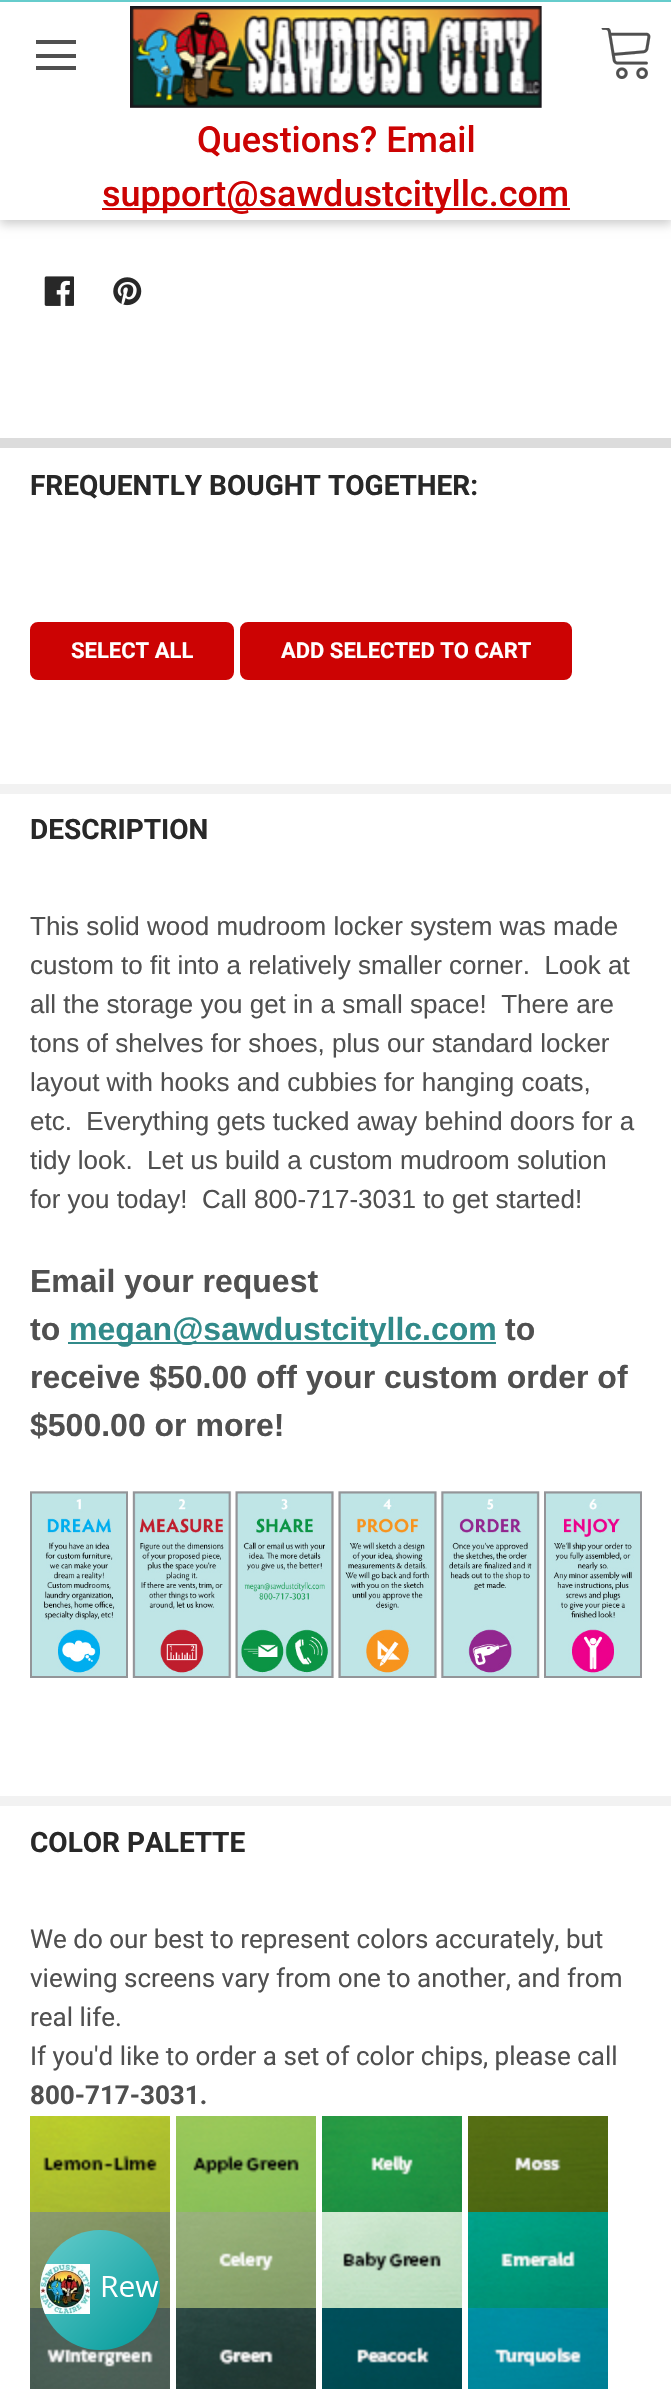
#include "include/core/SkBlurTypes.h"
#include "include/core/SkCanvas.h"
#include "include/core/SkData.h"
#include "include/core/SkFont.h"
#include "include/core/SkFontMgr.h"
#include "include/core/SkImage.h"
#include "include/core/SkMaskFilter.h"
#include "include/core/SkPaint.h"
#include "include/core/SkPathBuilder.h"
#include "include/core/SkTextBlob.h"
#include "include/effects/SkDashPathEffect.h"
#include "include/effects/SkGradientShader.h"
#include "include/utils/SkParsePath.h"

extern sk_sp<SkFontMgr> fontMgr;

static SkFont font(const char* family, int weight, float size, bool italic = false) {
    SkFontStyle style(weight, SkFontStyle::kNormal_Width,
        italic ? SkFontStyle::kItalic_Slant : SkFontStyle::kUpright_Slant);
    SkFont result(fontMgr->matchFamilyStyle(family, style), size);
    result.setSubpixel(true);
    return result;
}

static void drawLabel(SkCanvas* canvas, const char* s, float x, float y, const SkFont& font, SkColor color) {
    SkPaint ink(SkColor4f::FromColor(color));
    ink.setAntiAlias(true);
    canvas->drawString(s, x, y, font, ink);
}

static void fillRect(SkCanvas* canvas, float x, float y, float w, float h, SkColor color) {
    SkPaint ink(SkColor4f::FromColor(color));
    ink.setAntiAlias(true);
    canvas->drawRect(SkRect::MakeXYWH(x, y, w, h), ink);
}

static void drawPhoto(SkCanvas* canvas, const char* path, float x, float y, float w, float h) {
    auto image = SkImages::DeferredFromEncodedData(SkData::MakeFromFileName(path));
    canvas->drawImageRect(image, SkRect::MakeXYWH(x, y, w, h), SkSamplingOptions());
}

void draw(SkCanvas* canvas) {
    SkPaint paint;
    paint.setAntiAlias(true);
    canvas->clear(0xFFFFFFFF);
    paint.setColor(0x33000000);
    paint.setMaskFilter(SkMaskFilter::MakeBlur(kNormal_SkBlurStyle, 5));
    canvas->drawRect(SkRect::MakeXYWH(0, 4, 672, 220), paint);
    paint.setMaskFilter(nullptr);
    fillRect(canvas, 0, 2, 671, 218, 0xFFFFFFFF);
    fillRect(canvas, 0, 0, 671, 2, 0xFF66CCCC);
    fillRect(canvas, 36, 54, 40, 4, 0xFF505050);
    fillRect(canvas, 36, 40, 40, 4, 0xFF505050);
    fillRect(canvas, 36, 66, 40, 4, 0xFF505050);
    drawPhoto(canvas, "assets/img1.png", 130, 6, 412, 102);
    drawPhoto(canvas, "assets/img2.png", 601, 28, 50, 51);
    SkFont font1 = font("Roboto", 500, 36);
    drawLabel(canvas, "Questions? Email", 197, 152, font1, 0xFFCC0303);
    fillRect(canvas, 102, 208, 468, 2, 0xFFCC0303);
    drawLabel(canvas, "support@sawdustcityllc.com", 102, 206, font1, 0xFFCC0303);
    drawPhoto(canvas, "assets/img3.png", 44, 276, 30, 30);
    drawPhoto(canvas, "assets/img4.png", 113, 277, 29, 29);
    fillRect(canvas, 0, 438, 671, 10, 0xFFDCDCDC);
    SkFont font2 = font("Roboto", 700, 28);
    drawLabel(canvas, "FREQUENTLY BOUGHT TOGETHER:", 30, 495, font2, 0xFF282828);
    paint.setColor(0xFFCC0303);
    canvas->drawRoundRect(SkRect::MakeXYWH(31, 623, 202, 56), 7, 7, paint);
    paint.setStroke(true);
    paint.setStrokeWidth(2);
    canvas->drawRoundRect(SkRect::MakeXYWH(31, 623, 202, 56), 7, 7, paint);
    SkFont font3 = font("Roboto", 700, 22);
    drawLabel(canvas, "SELECT ALL", 71, 658, font3, 0xFFFFFFFF);
    paint.setStroke(false);
    canvas->drawRoundRect(SkRect::MakeXYWH(241, 623, 330, 56), 7, 7, paint);
    paint.setStroke(true);
    canvas->drawRoundRect(SkRect::MakeXYWH(241, 623, 330, 56), 7, 7, paint);
    drawLabel(canvas, "ADD SELECTED TO CART", 281, 658, font3, 0xFFFFFFFF);
    fillRect(canvas, 0, 784, 671, 10, 0xFFF2F2F2);
    drawLabel(canvas, "DESCRIPTION", 30, 839, font2, 0xFF282828);
    SkFont font4 = font("Liberation Sans", 400, 26);
    drawLabel(canvas, "This solid wood mudroom locker system was made", 30, 935, font4, 0xFF505050);
    drawLabel(canvas, "custom to fit into a relatively smaller corner.  Look at", 30, 974, font4, 0xFF505050);
    drawLabel(canvas, "all the storage you get in a small space!  There are", 30, 1013, font4, 0xFF505050);
    drawLabel(canvas, "tons of shelves for shoes, plus our standard locker", 30, 1052, font4, 0xFF505050);
    drawLabel(canvas, "layout with hooks and cubbies for hanging coats,", 30, 1091, font4, 0xFF505050);
    drawLabel(canvas, "etc.  Everything gets tucked away behind doors for a", 30, 1130, font4, 0xFF505050);
    drawLabel(canvas, "tidy look.  Let us build a custom mudroom solution", 30, 1169, font4, 0xFF505050);
    drawLabel(canvas, "for you today!  Call 800-717-3031 to get started!", 30, 1208, font4, 0xFF505050);
    SkFont font5 = font("Liberation Sans", 700, 32);
    drawLabel(canvas, "Email your request", 30, 1292, font5, 0xFF505050);
    canvas->save();
    canvas->clipRect(SkRect::MakeXYWH(30, 908, 612, 810));
    drawLabel(canvas, "to", 30, 1340, font5, 0xFF505050);
    canvas->restore();
    fillRect(canvas, 68, 1342, 428, 2, 0xFF318A8A);
    drawLabel(canvas, "megan@sawdustcityllc.com", 69, 1340, font5, 0xFF318A8A);
    drawLabel(canvas, "to", 505, 1340, font5, 0xFF505050);
    drawLabel(canvas, "receive $50.00 off your custom order of", 30, 1388, font5, 0xFF505050);
    drawLabel(canvas, "$500.00 or more!", 30, 1436, font5, 0xFF505050);
    drawPhoto(canvas, "assets/img5.png", 30, 1491, 612, 187);
    fillRect(canvas, 0, 1796, 671, 10, 0xFFF2F2F2);
    drawLabel(canvas, "COLOR PALETTE", 30, 1852, font2, 0xFF282828);
    SkFont font6 = font("Roboto", 400, 26);
    drawLabel(canvas, "We do our best to represent colors accurately, but", 30, 1948, font6, 0xFF505050);
    drawLabel(canvas, "viewing screens vary from one to another, and from", 30, 1987, font6, 0xFF505050);
    drawLabel(canvas, "real life.", 30, 2026, font6, 0xFF505050);
    drawLabel(canvas, "If you'd like to order a set of color chips, please call", 30, 2065, font6, 0xFF505050);
    SkFont font7 = font("Roboto", 700, 26);
    drawLabel(canvas, "800-717-3031.", 30, 2104, font7, 0xFF505050);
    drawPhoto(canvas, "assets/img6.png", 30, 2116, 140, 96);
    drawPhoto(canvas, "assets/img7.png", 176, 2116, 140, 96);
    drawPhoto(canvas, "assets/img8.png", 322, 2116, 140, 96);
    drawPhoto(canvas, "assets/img9.png", 468, 2116, 140, 96);
    drawPhoto(canvas, "assets/img10.png", 30, 2212, 140, 96);
    drawPhoto(canvas, "assets/img11.png", 176, 2212, 140, 96);
    drawPhoto(canvas, "assets/img12.png", 322, 2212, 140, 96);
    drawPhoto(canvas, "assets/img13.png", 468, 2212, 140, 96);
    drawPhoto(canvas, "assets/img14.png", 30, 2308, 140, 81);
    drawPhoto(canvas, "assets/img15.png", 176, 2308, 140, 81);
    drawPhoto(canvas, "assets/img16.png", 322, 2308, 140, 81);
    drawPhoto(canvas, "assets/img17.png", 468, 2308, 140, 81);
    paint.setStroke(false);
    {
        const SkColor colors[] = {0xFF66CCCC, 0xFF009999};
        const float stops[] = {0, 1};
        const SkPoint ends[] = {{40, 2230}, {160, 2350}};
        paint.setShader(SkGradientShader::MakeLinear(ends, colors, stops, 2, SkTileMode::kClamp));
        paint.setAlpha(255);
    }
    canvas->drawCircle(100, 2290, 60, paint);
    drawPhoto(canvas, "assets/img18.png", 40, 2264, 120, 50);
}
